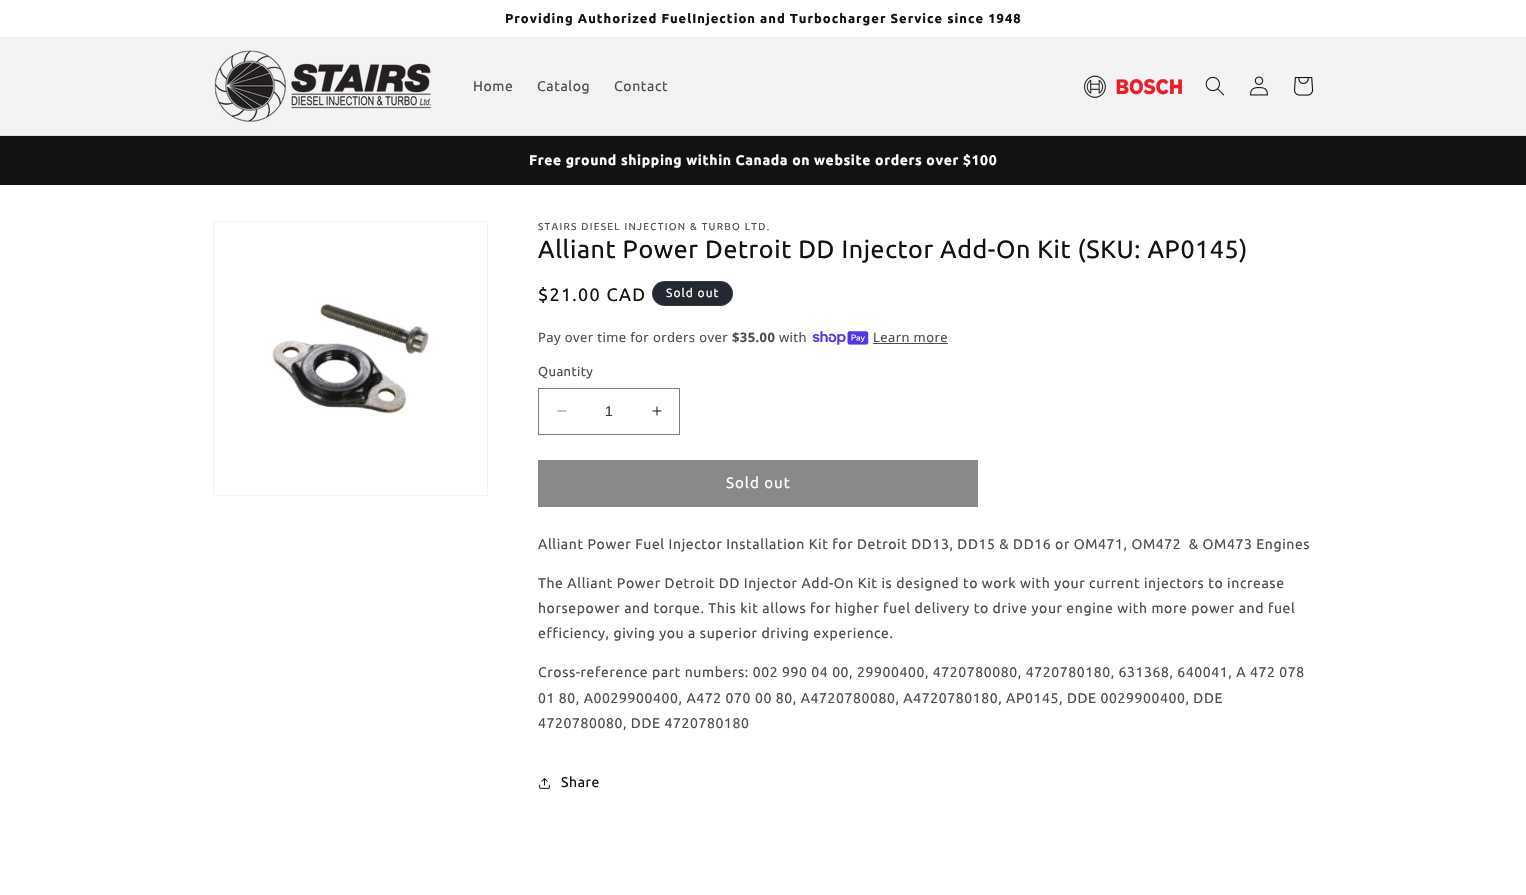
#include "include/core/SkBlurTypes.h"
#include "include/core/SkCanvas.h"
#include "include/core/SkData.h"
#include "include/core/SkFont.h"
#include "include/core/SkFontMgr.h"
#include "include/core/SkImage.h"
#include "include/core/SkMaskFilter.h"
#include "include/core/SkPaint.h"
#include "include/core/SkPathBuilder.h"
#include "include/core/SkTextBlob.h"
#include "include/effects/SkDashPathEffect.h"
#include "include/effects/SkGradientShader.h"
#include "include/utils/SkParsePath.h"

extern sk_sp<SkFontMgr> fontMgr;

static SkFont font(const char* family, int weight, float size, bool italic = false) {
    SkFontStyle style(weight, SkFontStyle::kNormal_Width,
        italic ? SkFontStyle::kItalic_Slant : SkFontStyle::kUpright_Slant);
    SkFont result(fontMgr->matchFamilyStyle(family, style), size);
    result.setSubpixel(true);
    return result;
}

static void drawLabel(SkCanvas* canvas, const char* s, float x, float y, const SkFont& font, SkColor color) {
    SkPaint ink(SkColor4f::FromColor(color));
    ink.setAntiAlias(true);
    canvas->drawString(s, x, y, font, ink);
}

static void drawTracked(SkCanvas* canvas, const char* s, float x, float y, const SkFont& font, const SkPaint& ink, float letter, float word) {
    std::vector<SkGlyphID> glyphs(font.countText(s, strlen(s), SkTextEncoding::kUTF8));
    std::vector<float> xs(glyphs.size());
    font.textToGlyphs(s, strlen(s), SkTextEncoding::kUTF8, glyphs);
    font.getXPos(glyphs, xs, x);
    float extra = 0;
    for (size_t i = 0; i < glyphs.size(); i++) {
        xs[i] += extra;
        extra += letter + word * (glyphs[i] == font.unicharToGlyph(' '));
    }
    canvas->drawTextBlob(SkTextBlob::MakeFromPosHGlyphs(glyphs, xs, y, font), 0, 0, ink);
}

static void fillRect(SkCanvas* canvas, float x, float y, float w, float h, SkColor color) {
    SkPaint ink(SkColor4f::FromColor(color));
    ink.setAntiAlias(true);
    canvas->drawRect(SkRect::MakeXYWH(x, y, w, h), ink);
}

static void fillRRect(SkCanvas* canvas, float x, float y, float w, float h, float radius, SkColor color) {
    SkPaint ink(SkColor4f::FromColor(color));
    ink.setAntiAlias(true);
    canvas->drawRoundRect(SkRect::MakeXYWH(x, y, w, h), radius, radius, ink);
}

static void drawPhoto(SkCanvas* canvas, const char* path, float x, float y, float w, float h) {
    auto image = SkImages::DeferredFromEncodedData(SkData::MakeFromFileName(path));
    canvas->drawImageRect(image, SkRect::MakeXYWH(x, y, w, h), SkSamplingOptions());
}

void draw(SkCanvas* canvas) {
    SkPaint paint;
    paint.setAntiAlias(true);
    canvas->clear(0xFFFFFFFF);
    fillRect(canvas, 0, 37, 1526, 1, 0xFFECECEC);
    SkFont font1 = font("Ubuntu", 700, 13);
    paint.setColor(0xFF121212);
    drawTracked(canvas, "Providing Authorized FuelInjection and Turbocharger Service since 1948", 505, 23, font1, paint, 1, 0);
    fillRect(canvas, 0, 38, 1526, 97, 0xFFF3F3F3);
    fillRect(canvas, 0, 135, 1526, 1, 0xFFE1E1E1);
    drawPhoto(canvas, "assets/img1.png", 214, 50, 217, 72);
    SkFont font2 = font("Ubuntu", 400, 14);
    paint.setColor(0xFF4D4D4D);
    drawTracked(canvas, "Home", 473, 91, font2, paint, 0.6f, 0);
    drawTracked(canvas, "Catalog", 537, 91, font2, paint, 0.6f, 0);
    drawTracked(canvas, "Contact", 614, 91, font2, paint, 0.6f, 0);
    drawPhoto(canvas, "assets/img2.png", 1084, 75, 98, 23);
    drawPhoto(canvas, "assets/img3.png", 1205, 76, 19, 20);
    drawPhoto(canvas, "assets/img4.png", 1250, 76, 18, 20);
    drawPhoto(canvas, "assets/img5.png", 1294, 77, 20, 19);
    fillRect(canvas, 0, 136, 1526, 49, 0xFF121212);
    SkFont font3 = font("Ubuntu", 700, 14);
    paint.setColor(0xFFFFFFFF);
    drawTracked(canvas, "Free ground shipping within Canada on website orders over $100", 529, 165, font3, paint, 0.6f, 0);
    paint.setStroke(true);
    paint.setStrokeWidth(1);
    paint.setColor(0xFFF3F3F3);
    canvas->drawRect(SkRect::MakeXYWH(213.5f, 221.5f, 274, 274), paint);
    drawPhoto(canvas, "assets/img6.png", 272, 303, 157, 111);
    SkFont font4 = font("Ubuntu", 400, 10);
    paint.setStroke(false);
    paint.setColor(0xFF4D4D4D);
    drawTracked(canvas, "STAIRS DIESEL INJECTION & TURBO LTD.", 538, 230, font4, paint, 1.3f, 0);
    SkFont font5 = font("Ubuntu", 400, 25);
    paint.setColor(0xFF121212);
    drawTracked(canvas, "Alliant Power Detroit DD Injector Add-On Kit (SKU: AP0145)", 538, 258, font5, paint, 0.6f, 0);
    SkFont font6 = font("Ubuntu", 400, 18);
    drawTracked(canvas, "$21.00 CAD", 538, 301, font6, paint, 1.3f, 0);
    fillRRect(canvas, 652, 281, 81, 25, 12.5f, 0xFF242833);
    paint.setStroke(true);
    paint.setColor(0x1AFFFFFF);
    canvas->drawRoundRect(SkRect::MakeXYWH(652.5f, 281.5f, 80, 24), 12, 12, paint);
    SkFont font7 = font("Ubuntu", 400, 12);
    paint.setStroke(false);
    paint.setColor(0xFFFFFFFF);
    drawTracked(canvas, "Sold out", 666, 297, font7, paint, 1, 0);
    SkFont font8 = font("Noto Sans", 400, 13);
    paint.setColor(0xFF4D4D4D);
    drawTracked(canvas, "Pay over time for orders over", 538, 342, font8, paint, 0.4f, 0);
    SkFont font9 = font("Noto Sans", 700, 13);
    drawTracked(canvas, "$35.00", 732, 342, font9, paint, 0.4f, 0);
    drawTracked(canvas, "with", 779, 342, font8, paint, 0.4f, 0);
    drawPhoto(canvas, "assets/img7.png", 812, 331, 57, 14);
    drawTracked(canvas, "Learn more", 873, 342, font8, paint, 0.4f, 0);
    fillRect(canvas, 873, 343, 75, 1, 0xFF4D4D4D);
    SkFont font10 = font("Ubuntu", 400, 13);
    drawTracked(canvas, "Quantity", 538, 376, font10, paint, 0.4f, 0);
    drawPhoto(canvas, "assets/img8.png", 557, 410, 10, 2);
    drawPhoto(canvas, "assets/img9.png", 652, 406, 10, 10);
    paint.setStroke(true);
    paint.setColor(0xFF7D7D7D);
    canvas->drawRect(SkRect::MakeXYWH(538.5f, 388.5f, 141, 46), paint);
    SkFont font11 = font("Liberation Sans", 400, 14);
    drawLabel(canvas, "1", 605, 416, font11, 0xFF363636);
    fillRect(canvas, 538, 460, 440, 47, 0xFF898989);
    SkFont font12 = font("Ubuntu", 400, 15);
    paint.setStroke(false);
    paint.setColor(0xFFFFFFFF);
    drawTracked(canvas, "Sold out", 726, 488, font12, paint, 1, 0);
    paint.setColor(0xFF4D4D4D);
    drawTracked(canvas, "Alliant Power Fuel Injector Installation Kit for Detroit DD13, DD15 & DD16 or OM471, OM472  & OM473 Engines", 538, 549, font2, paint, 0.6f, 0);
    drawTracked(canvas, "The Alliant Power Detroit DD Injector Add-On Kit is designed to work with your current injectors to increase", 538, 588, font2, paint, 0.6f, 0);
    drawTracked(canvas, "horsepower and torque. This kit allows for higher fuel delivery to drive your engine with more power and fuel", 538, 613, font2, paint, 0.6f, 0);
    drawTracked(canvas, "efficiency, giving you a superior driving experience.", 538, 638, font2, paint, 0.6f, 0);
    drawTracked(canvas, "Cross-reference part numbers: 002 990 04 00, 29900400, 4720780080, 4720780180, 631368, 640041, A 472 078", 538, 677, font2, paint, 0.6f, 0);
    drawTracked(canvas, "01 80, A0029900400, A472 070 00 80, A4720780080, A4720780180, AP0145, DDE 0029900400, DDE", 538, 703, font2, paint, 0.6f, 0);
    drawTracked(canvas, "4720780080, DDE 4720780180", 538, 728, font2, paint, 0.6f, 0);
    drawPhoto(canvas, "assets/img10.png", 539, 778, 11, 11);
    paint.setColor(0xFF121212);
    drawTracked(canvas, "Share", 561, 787, font2, paint, 0.6f, 0);
}
